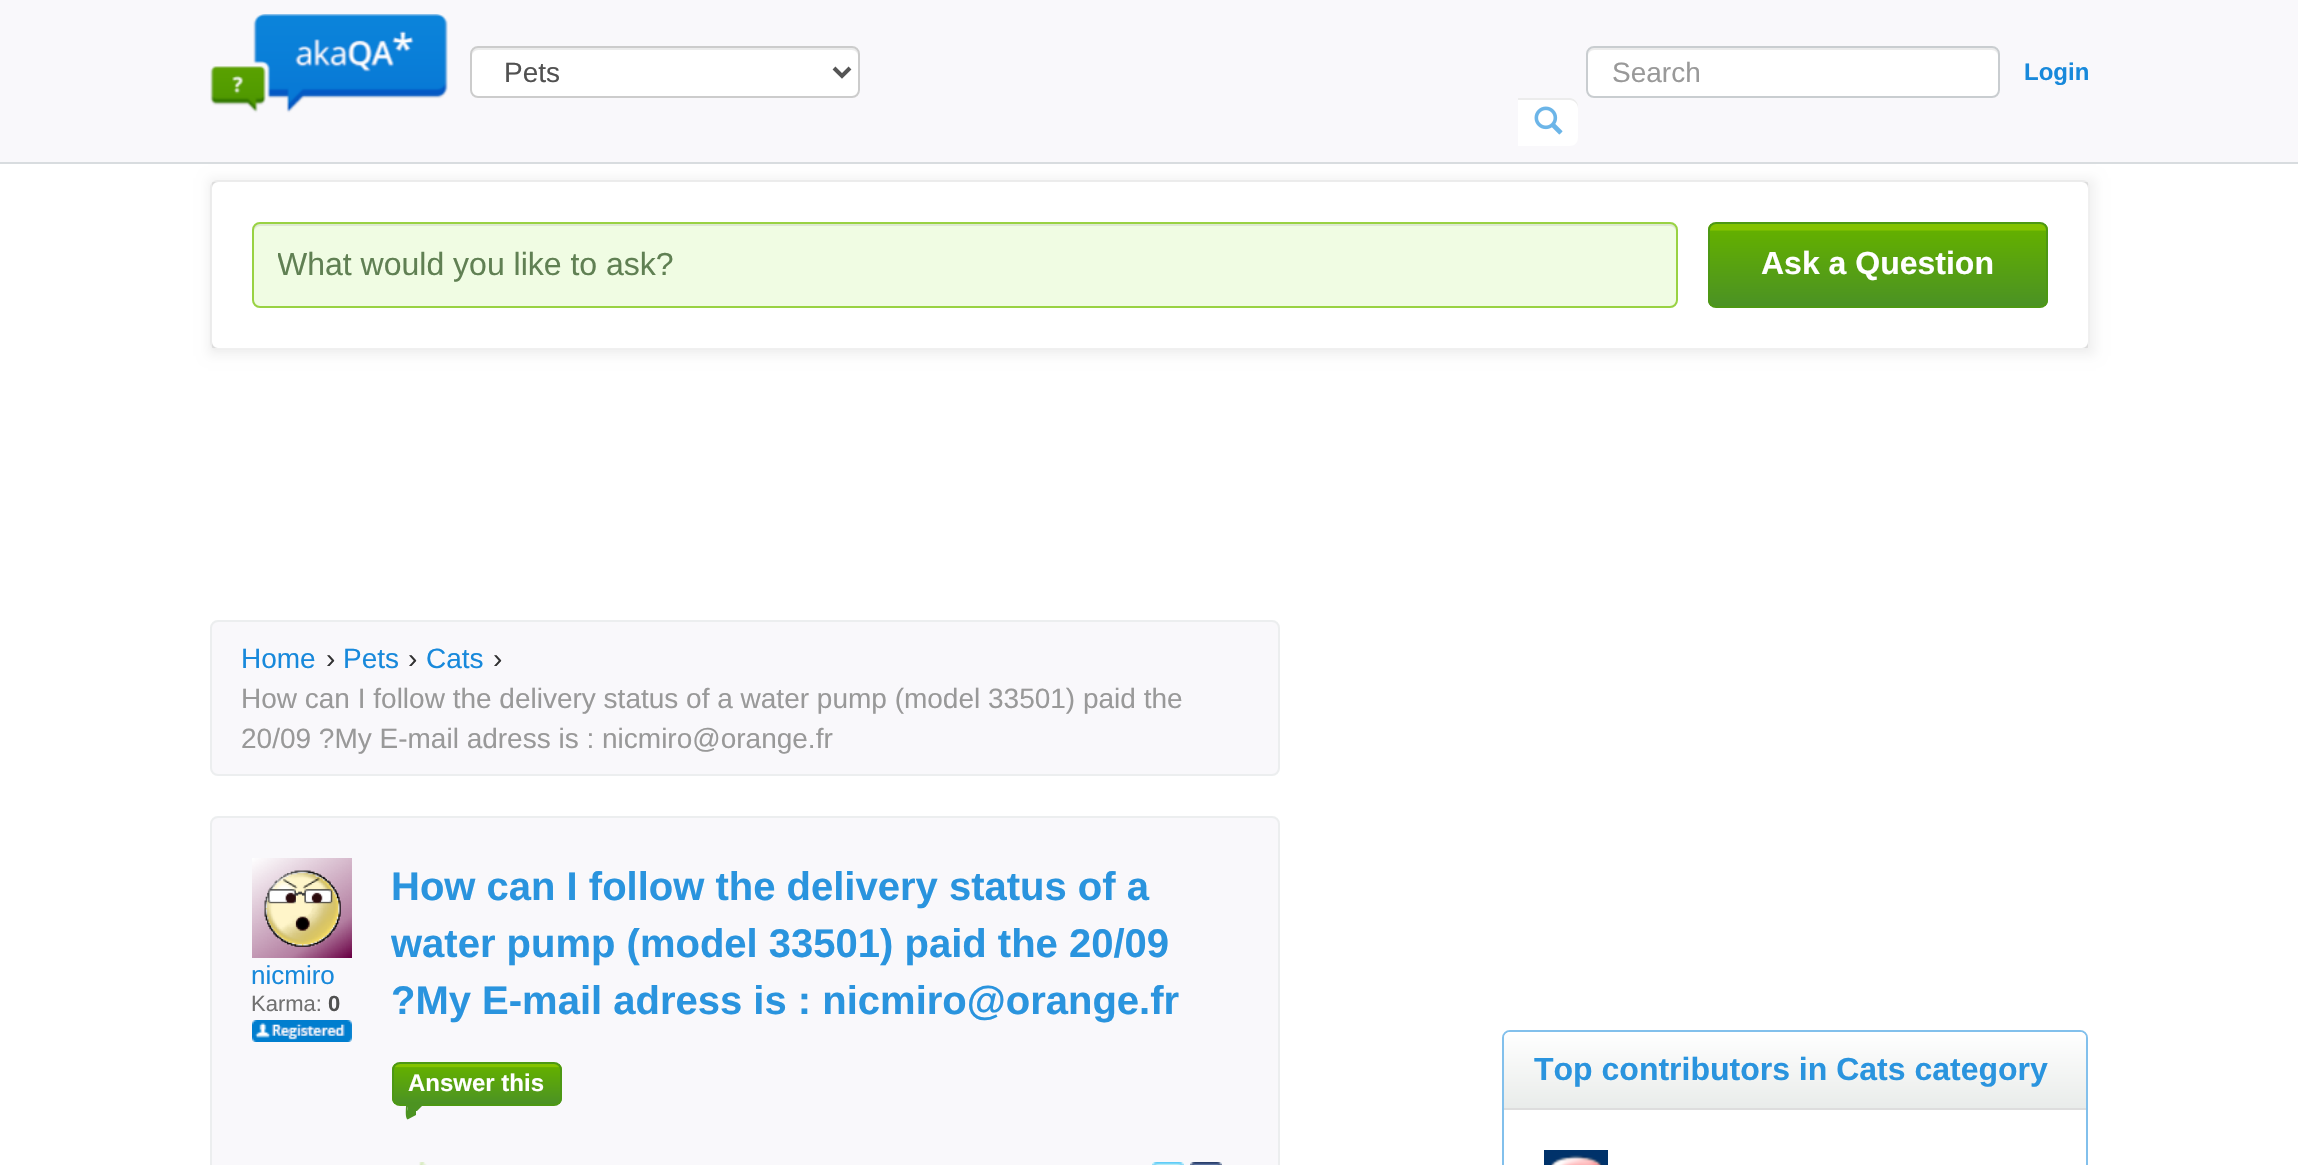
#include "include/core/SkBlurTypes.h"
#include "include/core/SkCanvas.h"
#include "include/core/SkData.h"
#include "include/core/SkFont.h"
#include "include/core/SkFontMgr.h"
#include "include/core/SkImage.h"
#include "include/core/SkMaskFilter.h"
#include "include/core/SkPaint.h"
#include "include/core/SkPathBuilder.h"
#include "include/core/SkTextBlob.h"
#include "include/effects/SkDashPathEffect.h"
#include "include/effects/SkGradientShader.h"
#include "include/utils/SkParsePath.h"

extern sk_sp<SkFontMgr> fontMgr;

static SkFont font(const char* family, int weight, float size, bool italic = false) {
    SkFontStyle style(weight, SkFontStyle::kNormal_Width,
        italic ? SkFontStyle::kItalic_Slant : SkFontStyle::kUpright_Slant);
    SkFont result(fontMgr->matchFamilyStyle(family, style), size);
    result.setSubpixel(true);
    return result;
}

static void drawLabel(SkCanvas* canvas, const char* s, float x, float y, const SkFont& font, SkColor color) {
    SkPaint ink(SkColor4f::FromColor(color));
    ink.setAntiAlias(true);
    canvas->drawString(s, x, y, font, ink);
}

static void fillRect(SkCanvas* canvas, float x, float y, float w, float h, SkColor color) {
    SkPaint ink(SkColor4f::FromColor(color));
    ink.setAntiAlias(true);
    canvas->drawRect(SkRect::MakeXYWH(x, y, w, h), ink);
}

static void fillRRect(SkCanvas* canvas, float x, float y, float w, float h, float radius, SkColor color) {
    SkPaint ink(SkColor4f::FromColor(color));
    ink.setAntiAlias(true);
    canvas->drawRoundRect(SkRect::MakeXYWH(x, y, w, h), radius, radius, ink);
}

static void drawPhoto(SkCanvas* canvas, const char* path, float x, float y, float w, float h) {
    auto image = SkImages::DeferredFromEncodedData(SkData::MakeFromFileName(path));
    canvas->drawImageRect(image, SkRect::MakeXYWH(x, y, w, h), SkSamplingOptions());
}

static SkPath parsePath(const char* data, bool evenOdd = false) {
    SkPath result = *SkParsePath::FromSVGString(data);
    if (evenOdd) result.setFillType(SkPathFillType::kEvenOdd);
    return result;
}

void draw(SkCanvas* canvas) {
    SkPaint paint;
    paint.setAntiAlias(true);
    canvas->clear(0xFFFFFFFF);
    fillRect(canvas, 0, 0, 2298, 162, 0xFFF9F8FB);
    paint.setColor(0x0D000000);
    paint.setMaskFilter(SkMaskFilter::MakeBlur(kNormal_SkBlurStyle, 1));
    canvas->drawRoundRect(SkRect::MakeXYWH(210, 182, 1880, 170), 8, 8, paint);
    paint.setMaskFilter(nullptr);
    paint.setColor(0xFFFFFFFF);
    canvas->drawRoundRect(SkRect::MakeXYWH(211, 181, 1878, 168), 7, 7, paint);
    paint.setStroke(true);
    paint.setStrokeWidth(2);
    paint.setColor(0xFFDDDDDD);
    canvas->drawRoundRect(SkRect::MakeXYWH(211, 181, 1878, 168), 7, 7, paint);
    canvas->save();
    canvas->clipPath(parsePath("M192 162H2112V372H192ZM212 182H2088V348H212Z", true), true);
    paint.setStroke(false);
    paint.setColor(0xFFF2F2F2);
    paint.setMaskFilter(SkMaskFilter::MakeBlur(kNormal_SkBlurStyle, 5));
    canvas->drawRect(SkRect::MakeXYWH(208, 178, 1888, 178), paint);
    paint.setMaskFilter(nullptr);
    canvas->restore();
    fillRect(canvas, 0, 162, 2298, 2, 0xFFD8DCDF);
    drawPhoto(canvas, "assets/img1.png", 210, 14, 238, 99);
    fillRRect(canvas, 470, 46, 390, 52, 8, 0xFFFFFFFF);
    paint.setColor(0xFFECECEC);
    canvas->drawPath(parsePath("M478 50H852C855 50 858 53 858 56C858 52 857 48 852 48H478C473 48 472 52 472 56C472 53 475 50 478 50Z"), paint);
    paint.setStroke(true);
    paint.setColor(0xFFCCCCCC);
    canvas->drawRoundRect(SkRect::MakeXYWH(471, 47, 388, 50), 7, 7, paint);
    paint.setStrokeWidth(4);
    paint.setColor(0xFF555555);
    canvas->drawPath(parsePath("M834 68L842 76L850 68"), paint);
    SkFont font1 = font("Liberation Sans", 400, 28);
    drawLabel(canvas, "Pets", 504, 82, font1, 0xFF515151);
    fillRRect(canvas, 1586, 46, 414, 52, 8, 0xFFFFFFFF);
    paint.setStroke(false);
    paint.setColor(0xFFECECEC);
    canvas->drawPath(parsePath("M1594 50H1992C1995 50 1998 53 1998 56C1998 52 1997 48 1992 48H1594C1589 48 1588 52 1588 56C1588 53 1591 50 1594 50Z"), paint);
    paint.setStroke(true);
    paint.setStrokeWidth(2);
    paint.setColor(0xFFC9CDD0);
    canvas->drawRoundRect(SkRect::MakeXYWH(1587, 47, 412, 50), 7, 7, paint);
    drawLabel(canvas, "Search", 1612, 82, font1, 0xFF999999);
    paint.setStroke(false);
    paint.setColor(0xFFFFFFFF);
    canvas->drawPath(parsePath("M1518 98H1570C1574.5 98 1578 101.5 1578 106V138C1578 142.5 1574.5 146 1570 146H1518Z"), paint);
    paint.setColor(0xFFECECEC);
    canvas->drawPath(parsePath("M1518 100H1570C1574 100 1578 104 1578 108V106C1578 102 1574 98 1570 98H1518Z"), paint);
    drawPhoto(canvas, "assets/img2.png", 1534, 106, 29, 29);
    SkFont font2 = font("Liberation Sans", 700, 24);
    drawLabel(canvas, "Login", 2024, 80, font2, 0xFF1889DB);
    fillRRect(canvas, 252, 222, 1426, 86, 8, 0xFFF0FCE3);
    paint.setColor(0xFFDEE9D2);
    canvas->drawPath(parsePath("M260 226H1670C1673 226 1676 229 1676 232C1676 228 1675 224 1670 224H260C255 224 254 228 254 232C254 229 257 226 260 226Z"), paint);
    paint.setStroke(true);
    paint.setColor(0xFF99D243);
    canvas->drawRoundRect(SkRect::MakeXYWH(253, 223, 1424, 84), 7, 7, paint);
    canvas->save();
    canvas->clipRect(SkRect::MakeXYWH(278, 248, 1374, 36));
    SkFont font3 = font("Liberation Sans", 400, 32);
    drawLabel(canvas, "What would you like to ask?", 277, 275, font3, 0xFF608053);
    canvas->restore();
    canvas->save();
    canvas->clipPath(parsePath("M1716 222H2040C2044.5 222 2048 225.5 2048 230V300C2048 304.5 2044.5 308 2040 308H1716C1711.5 308 1708 304.5 1708 300V230C1708 225.5 1711.5 222 1716 222Z"), true);
    paint.setStroke(false);
    {
        const SkColor colors[] = {0xFF84C300, 0xFF63AF00, 0xFF4B9224};
        const float stops[] = {0.07f, 0.09f, 1};
        const SkPoint ends[] = {{1878, 224}, {1878, 306}};
        paint.setShader(SkGradientShader::MakeLinear(ends, colors, stops, 3, SkTileMode::kClamp));
        paint.setAlpha(255);
    }
    canvas->drawRect(SkRect::MakeXYWH(1708, 224, 340, 82), paint);
    canvas->restore();
    paint.setStroke(true);
    paint.setShader(nullptr);
    paint.setColor(0xFF4D9814);
    canvas->drawRoundRect(SkRect::MakeXYWH(1709, 223, 338, 84), 7, 7, paint);
    SkFont font4 = font("Liberation Sans", 700, 32);
    drawLabel(canvas, "Ask a Question", 1761, 274, font4, 0xFFFFFFFF);
    paint.setStroke(false);
    paint.setColor(0xFFF9F8FB);
    canvas->drawRoundRect(SkRect::MakeXYWH(211, 621, 1068, 154), 7, 7, paint);
    paint.setStroke(true);
    paint.setColor(0xFFECEEEF);
    canvas->drawRoundRect(SkRect::MakeXYWH(211, 621, 1068, 154), 7, 7, paint);
    drawLabel(canvas, "Home", 241, 668, font1, 0xFF1889DB);
    drawLabel(canvas, "›", 326, 668, font1, 0xFF333333);
    drawLabel(canvas, "Pets", 343, 668, font1, 0xFF1889DB);
    drawLabel(canvas, "›", 408, 668, font1, 0xFF333333);
    drawLabel(canvas, "Cats", 426, 668, font1, 0xFF1889DB);
    drawLabel(canvas, "›", 493, 668, font1, 0xFF333333);
    drawLabel(canvas, "How can I follow the delivery status of a water pump (model 33501) paid the", 241, 708, font1, 0xFF999999);
    drawLabel(canvas, "20/09 ?My E-mail adress is : nicmiro@orange.fr", 241, 748, font1, 0xFF999999);
    paint.setStroke(false);
    paint.setColor(0xFFF9F8FB);
    canvas->drawRoundRect(SkRect::MakeXYWH(211, 817, 1068, 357), 7, 7, paint);
    paint.setStroke(true);
    paint.setColor(0xFFECEEEF);
    canvas->drawRoundRect(SkRect::MakeXYWH(211, 817, 1068, 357), 7, 7, paint);
    drawPhoto(canvas, "assets/img3.png", 252, 858, 100, 100);
    SkFont font5 = font("Liberation Sans", 400, 26);
    drawLabel(canvas, "nicmiro", 251, 984, font5, 0xFF1889DB);
    SkFont font6 = font("Liberation Sans", 400, 22);
    drawLabel(canvas, "Karma:", 251, 1011, font6, 0xFF717171);
    SkFont font7 = font("Liberation Sans", 700, 22);
    drawLabel(canvas, "0", 328, 1011, font7, 0xFF515151);
    drawPhoto(canvas, "assets/img4.png", 252, 1020, 100, 22);
    SkFont font8 = font("Liberation Sans", 700, 40);
    drawLabel(canvas, "How can I follow the delivery status of a", 391, 900, font8, 0xFF2A94DE);
    drawLabel(canvas, "water pump (model 33501) paid the 20/09", 391, 957, font8, 0xFF2A94DE);
    drawLabel(canvas, "?My E-mail adress is : nicmiro@orange.fr", 391, 1014, font8, 0xFF2A94DE);
    canvas->save();
    canvas->clipPath(parsePath("M400 1062H554C558.5 1062 562 1065.5 562 1070V1098C562 1102.5 558.5 1106 554 1106H400C395.5 1106 392 1102.5 392 1098V1070C392 1065.5 395.5 1062 400 1062Z"), true);
    paint.setStroke(false);
    {
        const SkColor colors[] = {0xFF84C300, 0xFF63AF00, 0xFF4B9224};
        const float stops[] = {0.07f, 0.09f, 1};
        const SkPoint ends[] = {{477, 1064}, {477, 1104}};
        paint.setShader(SkGradientShader::MakeLinear(ends, colors, stops, 3, SkTileMode::kClamp));
        paint.setAlpha(255);
    }
    canvas->drawRect(SkRect::MakeXYWH(392, 1064, 170, 40), paint);
    canvas->restore();
    paint.setStroke(true);
    paint.setShader(nullptr);
    paint.setColor(0xFF4D9814);
    canvas->drawRoundRect(SkRect::MakeXYWH(393, 1063, 168, 42), 7, 7, paint);
    drawLabel(canvas, "Answer this", 408, 1091, font2, 0xFFFFFFFF);
    paint.setStroke(false);
    paint.setColor(0xFF4C9321);
    canvas->drawPath(parsePath("M410 1102C408 1102 407 1103 406.5 1104L408 1111H417L425 1103C424 1102.5 422.5 1102 420 1102Z"), paint);
    canvas->drawPath(parsePath("M406 1106L406.5 1104L408 1111H416V1115L407.5 1119.5C405 1117.5 406 1109 406 1106Z"), paint);
    paint.setColor(0xFF4B9224);
    canvas->drawPath(parsePath("M412 1108C413.5 1108 414.5 1108.5 415 1109.5L413.5 1112H410.5L409 1109.5C409.5 1108.5 410.5 1108 412 1108Z"), paint);
    canvas->drawPath(parsePath("M412 1114L409.5 1115C408 1114 408 1111 409 1109.5L410.5 1112H412Z"), paint);
    drawPhoto(canvas, "assets/img5.png", 419, 1162, 8, 3);
    drawPhoto(canvas, "assets/img6.png", 1152, 1162, 32, 3);
    drawPhoto(canvas, "assets/img7.png", 1190, 1162, 32, 3);
    paint.setStroke(true);
    paint.setColor(0xFF82C0EC);
    canvas->drawRoundRect(SkRect::MakeXYWH(1503, 1031, 584, 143), 7, 7, paint);
    paint.setStroke(false);
    {
        const SkColor colors[] = {0xFFFFFFFF, 0xFFE9ECEA};
        const float stops[] = {0, 1};
        const SkPoint ends[] = {{1795, 1032}, {1795, 1108}};
        paint.setShader(SkGradientShader::MakeLinear(ends, colors, stops, 2, SkTileMode::kClamp));
        paint.setAlpha(255);
    }
    canvas->drawPath(parsePath("M1510 1032H2080C2083.5 1032 2086 1034.5 2086 1038V1108H1504V1038C1504 1034.5 1506.5 1032 1510 1032Z"), paint);
    fillRect(canvas, 1504, 1108, 582, 2, 0xFFDDDDDD);
    drawLabel(canvas, "Top contributors in Cats category", 1534, 1080, font4, 0xFF2A94DE);
    drawPhoto(canvas, "assets/img8.png", 1544, 1150, 64, 15);
}
